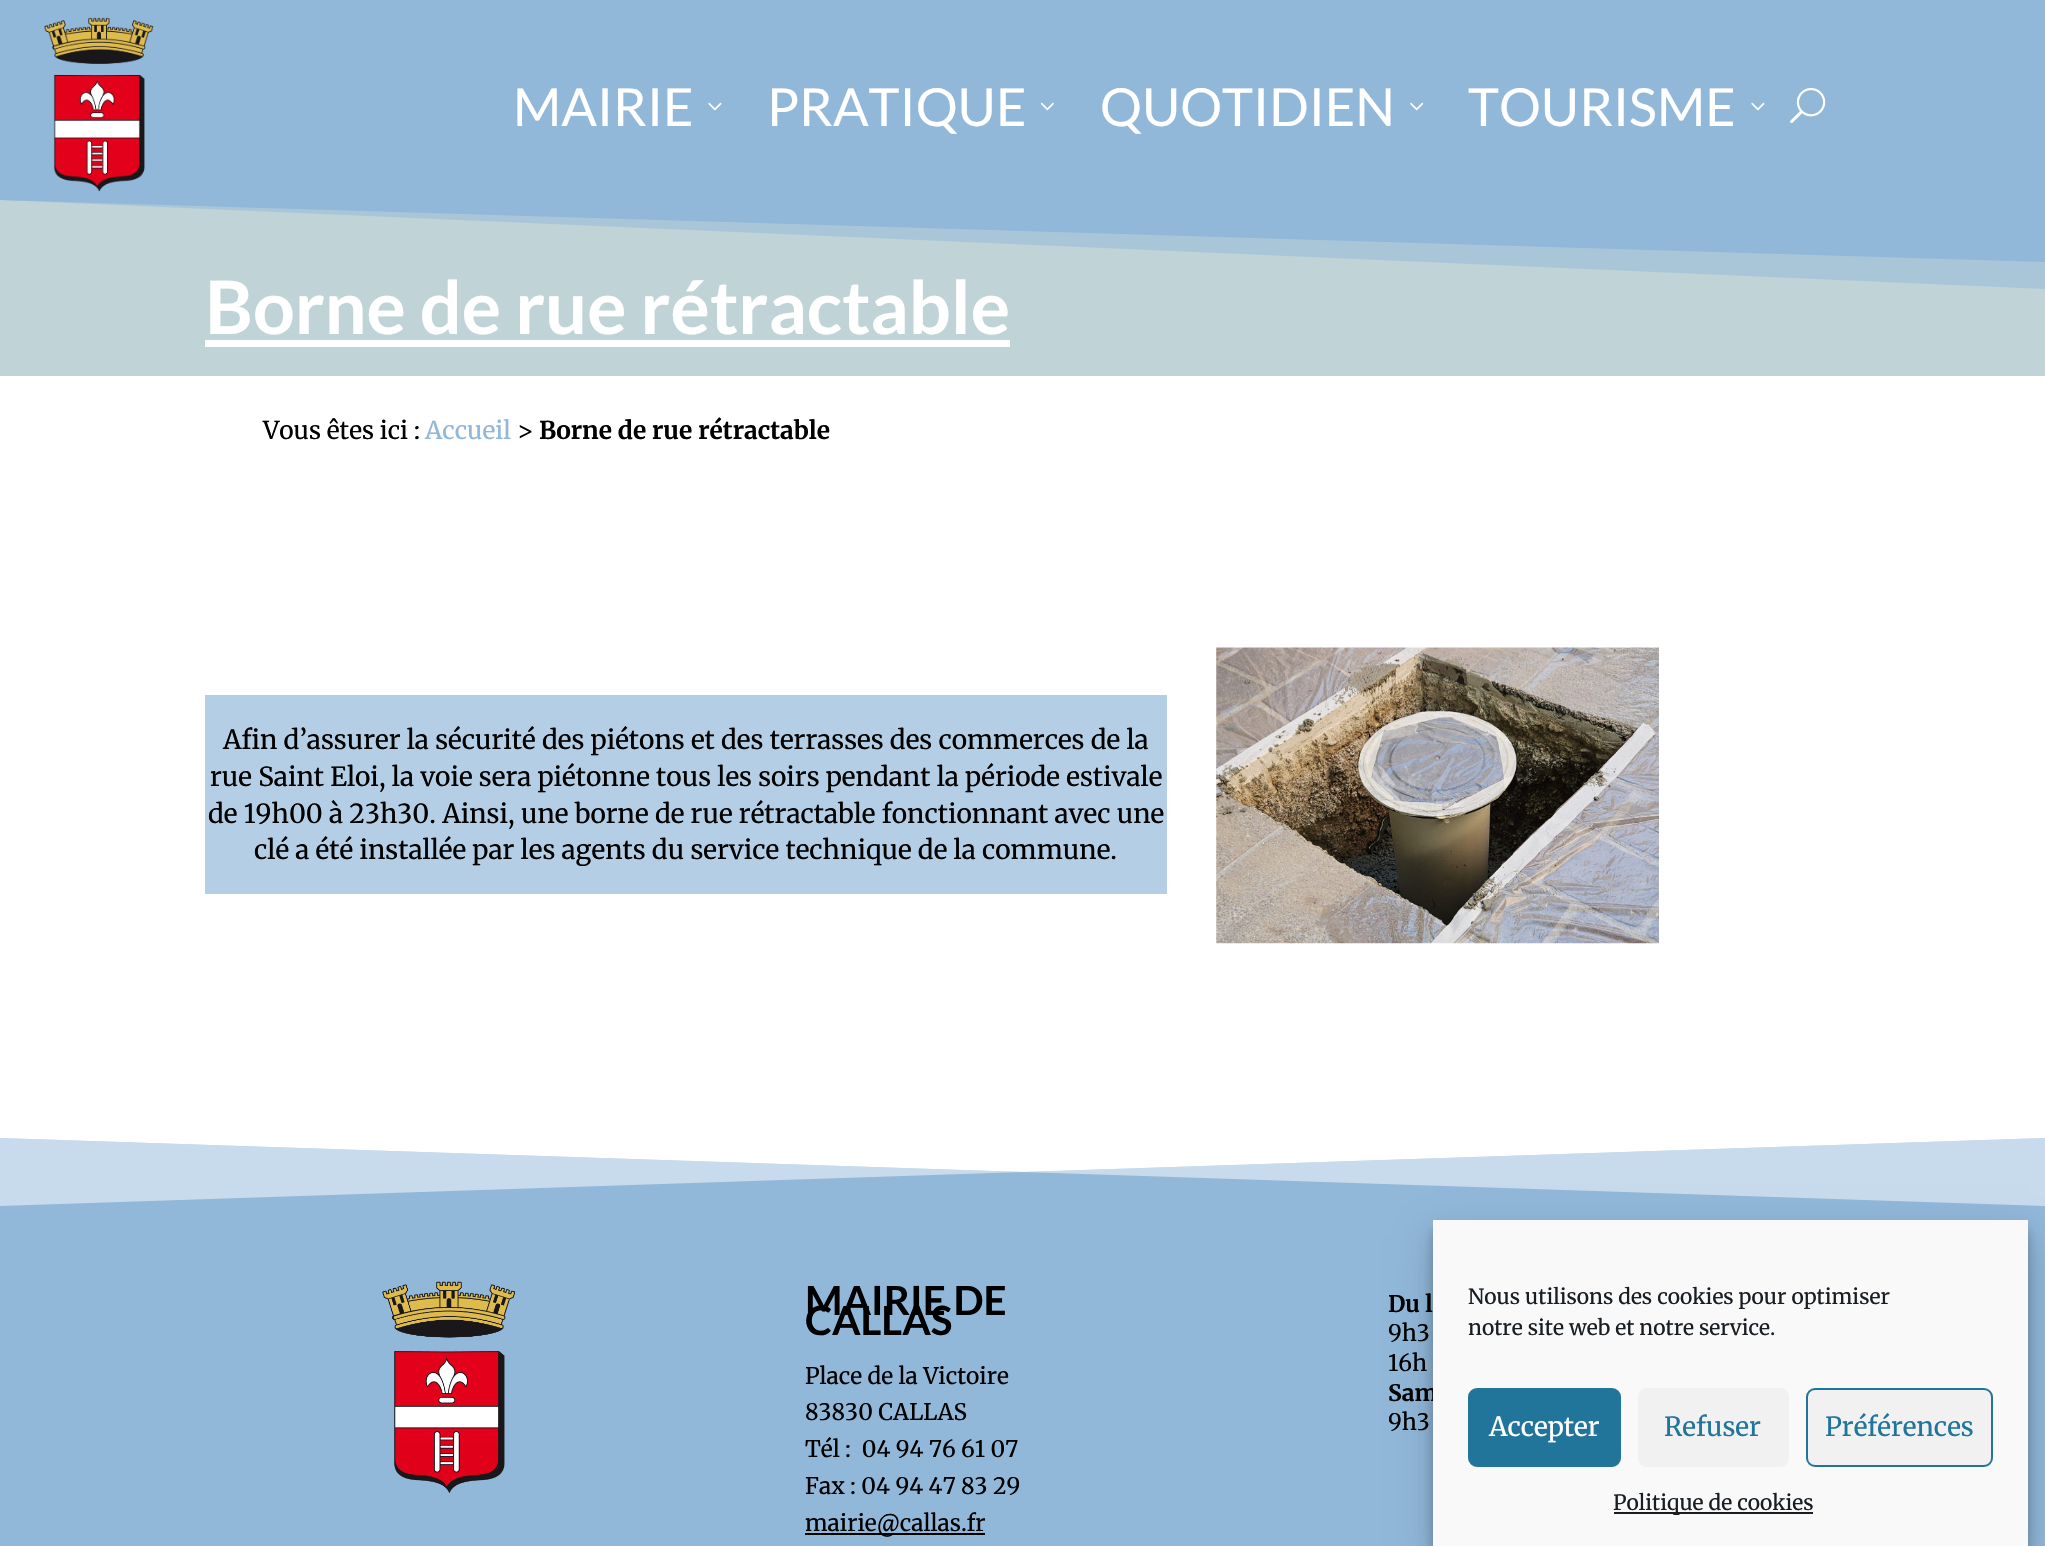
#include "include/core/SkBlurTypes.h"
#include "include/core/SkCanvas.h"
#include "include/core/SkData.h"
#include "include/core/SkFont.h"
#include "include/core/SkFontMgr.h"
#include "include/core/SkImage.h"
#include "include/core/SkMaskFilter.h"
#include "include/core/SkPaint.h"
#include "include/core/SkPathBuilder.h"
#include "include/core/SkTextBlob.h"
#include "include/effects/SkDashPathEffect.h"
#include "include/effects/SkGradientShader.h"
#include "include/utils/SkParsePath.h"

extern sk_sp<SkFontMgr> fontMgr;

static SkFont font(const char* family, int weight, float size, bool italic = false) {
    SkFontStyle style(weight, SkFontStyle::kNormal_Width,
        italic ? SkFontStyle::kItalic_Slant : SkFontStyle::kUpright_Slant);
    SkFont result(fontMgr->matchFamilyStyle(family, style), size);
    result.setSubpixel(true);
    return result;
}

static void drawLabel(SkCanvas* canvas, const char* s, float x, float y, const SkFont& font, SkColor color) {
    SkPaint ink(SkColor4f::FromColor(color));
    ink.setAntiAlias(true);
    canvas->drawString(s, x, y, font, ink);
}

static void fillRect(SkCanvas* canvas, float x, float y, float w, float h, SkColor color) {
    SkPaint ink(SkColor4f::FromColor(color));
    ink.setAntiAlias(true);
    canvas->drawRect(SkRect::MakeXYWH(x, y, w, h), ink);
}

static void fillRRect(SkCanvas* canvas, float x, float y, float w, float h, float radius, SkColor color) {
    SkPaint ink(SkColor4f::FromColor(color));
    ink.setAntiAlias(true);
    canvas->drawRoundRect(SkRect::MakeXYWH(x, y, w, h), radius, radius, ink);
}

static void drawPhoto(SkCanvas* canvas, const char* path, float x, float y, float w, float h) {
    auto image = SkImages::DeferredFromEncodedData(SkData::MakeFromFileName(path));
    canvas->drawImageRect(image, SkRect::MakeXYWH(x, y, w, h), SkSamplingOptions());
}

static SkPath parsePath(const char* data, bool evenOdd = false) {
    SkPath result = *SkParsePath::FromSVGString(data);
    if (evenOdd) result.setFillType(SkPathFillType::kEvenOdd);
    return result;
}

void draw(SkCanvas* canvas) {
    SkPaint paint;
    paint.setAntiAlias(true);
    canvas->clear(0xFFFFFFFF);
    fillRect(canvas, 0, 0, 2045, 200, 0xFF91B7D9);
    drawPhoto(canvas, "assets/img1.png", 44, 17, 110, 175);
    SkFont font1 = font("Lato", 400, 52.5f);
    drawLabel(canvas, "MAIRIE", 513, 126, font1, 0xFFFFFFFF);
    drawPhoto(canvas, "assets/img2.png", 708, 102, 14, 9);
    drawLabel(canvas, "PRATIQUE", 767, 126, font1, 0xFFFFFFFF);
    drawPhoto(canvas, "assets/img3.png", 1040, 102, 14, 9);
    drawLabel(canvas, "QUOTIDIEN", 1100, 126, font1, 0xFFFFFFFF);
    drawPhoto(canvas, "assets/img4.png", 1410, 102, 14, 9);
    drawLabel(canvas, "TOURISME", 1468, 126, font1, 0xFFFFFFFF);
    drawPhoto(canvas, "assets/img2.png", 1751, 102, 14, 9);
    drawPhoto(canvas, "assets/img5.png", 1790, 88, 36, 35);
    fillRect(canvas, 0, 200, 2045, 176, 0xFFC0D4D8);
    SkFont font2 = font("Lato", 700, 73.5f);
    drawLabel(canvas, "Borne de rue rétractable", 205, 334, font2, 0xFFFFFFFF);
    paint.setColor(0xFFA9C6D9);
    canvas->drawPath(parsePath("M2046 289V200H0Z"), paint);
    paint.setColor(0xFF91B7D9);
    canvas->drawPath(parsePath("M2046 262V200H0Z"), paint);
    fillRect(canvas, 205, 340, 805, 7, 0xFFFFFFFF);
    SkFont font3 = font("Merriweather", 300, 24.5f);
    drawLabel(canvas, "Vous êtes ici :", 263, 439, font3, 0xFF000000);
    drawLabel(canvas, "Accueil", 425, 439, font3, 0xFF91B7D9);
    drawLabel(canvas, ">", 517, 439, font3, 0xFF000000);
    SkFont font4 = font("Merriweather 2", 300, 24.5f);
    drawLabel(canvas, "Borne de rue rétractable", 539, 439, font4, 0xFF000000);
    fillRect(canvas, 205, 695, 962, 199, 0xFFB4CEE5);
    SkFont font5 = font("Merriweather", 300, 26.25f);
    drawLabel(canvas, "Afin d’assurer la sécurité des piétons et des terrasses des commerces de la", 223, 749, font5, 0xFF000000);
    drawLabel(canvas, "rue Saint Eloi, la voie sera piétonne tous les soirs pendant la période estivale", 210, 786, font5, 0xFF000000);
    drawLabel(canvas, "de 19h00 à 23h30. Ainsi, une borne de rue rétractable fonctionnant avec une", 208, 823, font5, 0xFF000000);
    drawLabel(canvas, "clé a été installée par les agents du service technique de la commune.", 254, 859, font5, 0xFF000000);
    drawPhoto(canvas, "assets/img6.png", 1216, 647, 443, 297);
    fillRect(canvas, 0, 1138, 2045, 408, 0xFF91B7D9);
    paint.setColor(0xFFC8DBEC);
    canvas->drawPath(parsePath("M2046 1138L1023 1172L0 1138V1206L1023 1172L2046 1206Z"), paint);
    paint.setColor(0xFFFFFFFF);
    canvas->drawPath(parsePath("M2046 1138H0L1023 1172Z"), paint);
    drawPhoto(canvas, "assets/img7.png", 382, 1281, 133, 213);
    SkFont font6 = font("Lato", 700, 40.25f);
    drawLabel(canvas, "MAIRIE DE", 805, 1315, font6, 0xFF000000);
    drawLabel(canvas, "CALLAS", 805, 1335, font6, 0xFF000000);
    SkFont font7 = font("Merriweather", 300, 22.75f);
    drawLabel(canvas, "Place de la Victoire", 805, 1384, font7, 0xFF000000);
    drawLabel(canvas, "83830 CALLAS", 805, 1420, font7, 0xFF000000);
    drawLabel(canvas, "Tél :  04 94 76 61 07", 805, 1457, font7, 0xFF000000);
    drawLabel(canvas, "Fax : 04 94 47 83 29", 805, 1494, font7, 0xFF000000);
    fillRect(canvas, 805, 1533, 180, 2, 0xFF000000);
    drawLabel(canvas, "mairie@callas.fr", 805, 1531, font7, 0xFF000000);
    SkFont font8 = font("Merriweather 2", 300, 22.75f);
    drawLabel(canvas, "Du l", 1388, 1312, font8, 0xFF000000);
    drawLabel(canvas, "9h3", 1388, 1341, font7, 0xFF000000);
    drawLabel(canvas, "16h", 1388, 1371, font7, 0xFF000000);
    drawLabel(canvas, "Sam", 1388, 1401, font8, 0xFF000000);
    drawLabel(canvas, "9h3", 1388, 1430, font7, 0xFF000000);
    paint.setColor(0x3B000000);
    paint.setMaskFilter(SkMaskFilter::MakeBlur(kNormal_SkBlurStyle, 5));
    canvas->drawRect(SkRect::MakeXYWH(1433, 1230, 595, 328), paint);
    paint.setMaskFilter(nullptr);
    paint.setColor(0x30000000);
    paint.setMaskFilter(SkMaskFilter::MakeBlur(kNormal_SkBlurStyle, 17.5f));
    canvas->drawRect(SkRect::MakeXYWH(1433, 1237, 595, 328), paint);
    paint.setMaskFilter(nullptr);
    fillRect(canvas, 1433, 1220, 595, 326, 0xFFF9F9F9);
    SkFont font9 = font("Merriweather", 300, 21);
    drawLabel(canvas, "Nous utilisons des cookies pour optimiser", 1468, 1304, font9, 0xFF191E23);
    drawLabel(canvas, "notre site web et notre service.", 1468, 1335, font9, 0xFF191E23);
    paint.setColor(0xFF21759B);
    canvas->drawRoundRect(SkRect::MakeXYWH(1469, 1389, 151, 77), 8, 8, paint);
    paint.setStroke(true);
    paint.setStrokeWidth(2);
    canvas->drawRoundRect(SkRect::MakeXYWH(1469, 1389, 151, 77), 8, 8, paint);
    drawLabel(canvas, "Accepter", 1489, 1436, font5, 0xFFFFFFFF);
    fillRRect(canvas, 1638, 1388, 151, 79, 9, 0xFFF1F1F1);
    drawLabel(canvas, "Refuser", 1664, 1436, font5, 0xFF21759B);
    paint.setStroke(false);
    paint.setColor(0xFFF1F1F1);
    canvas->drawRoundRect(SkRect::MakeXYWH(1807, 1389, 185, 77), 8, 8, paint);
    paint.setStroke(true);
    paint.setColor(0xFF21759B);
    canvas->drawRoundRect(SkRect::MakeXYWH(1807, 1389, 185, 77), 8, 8, paint);
    drawLabel(canvas, "Préférences", 1825, 1436, font5, 0xFF21759B);
    fillRect(canvas, 1614, 1512, 199, 2, 0xFF191E23);
    drawLabel(canvas, "Politique de cookies", 1613, 1510, font9, 0xFF191E23);
}
